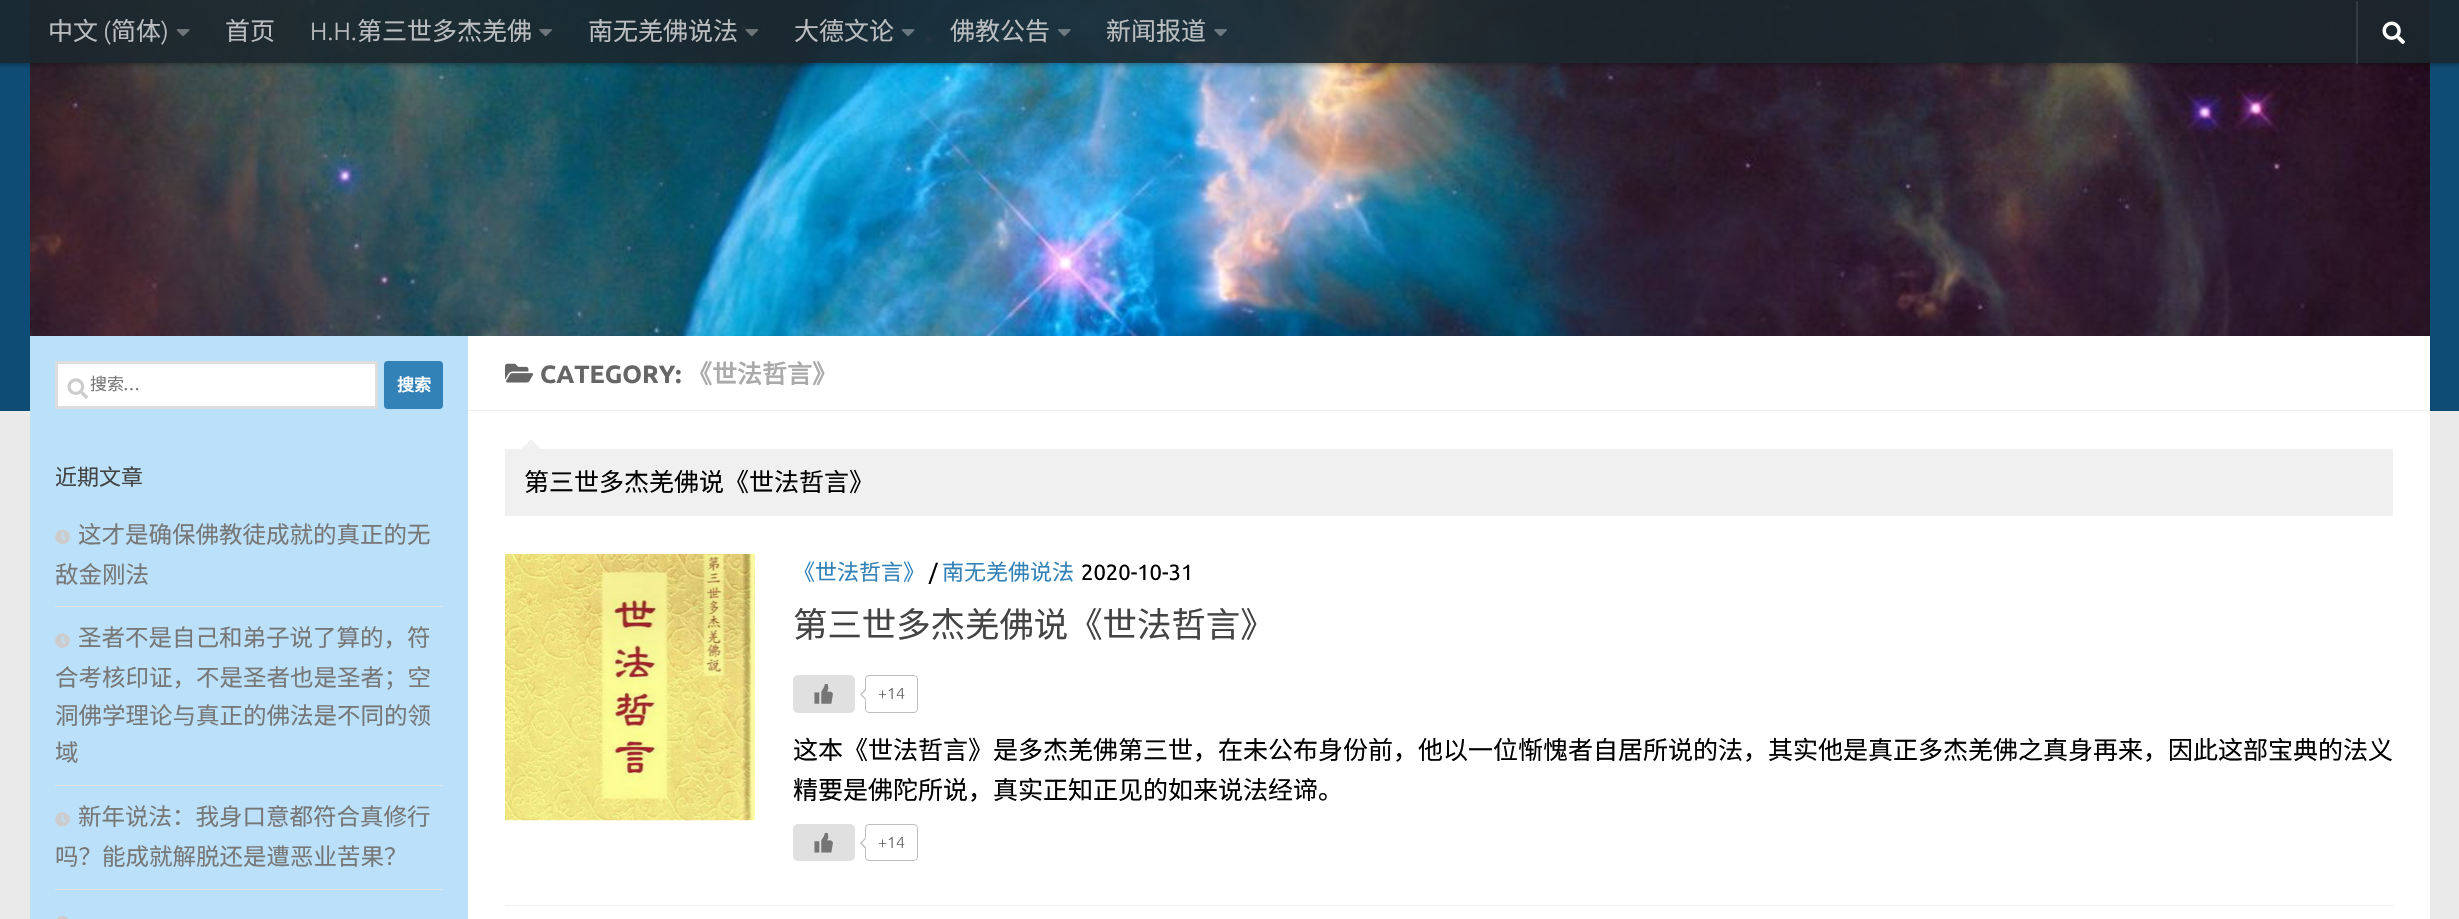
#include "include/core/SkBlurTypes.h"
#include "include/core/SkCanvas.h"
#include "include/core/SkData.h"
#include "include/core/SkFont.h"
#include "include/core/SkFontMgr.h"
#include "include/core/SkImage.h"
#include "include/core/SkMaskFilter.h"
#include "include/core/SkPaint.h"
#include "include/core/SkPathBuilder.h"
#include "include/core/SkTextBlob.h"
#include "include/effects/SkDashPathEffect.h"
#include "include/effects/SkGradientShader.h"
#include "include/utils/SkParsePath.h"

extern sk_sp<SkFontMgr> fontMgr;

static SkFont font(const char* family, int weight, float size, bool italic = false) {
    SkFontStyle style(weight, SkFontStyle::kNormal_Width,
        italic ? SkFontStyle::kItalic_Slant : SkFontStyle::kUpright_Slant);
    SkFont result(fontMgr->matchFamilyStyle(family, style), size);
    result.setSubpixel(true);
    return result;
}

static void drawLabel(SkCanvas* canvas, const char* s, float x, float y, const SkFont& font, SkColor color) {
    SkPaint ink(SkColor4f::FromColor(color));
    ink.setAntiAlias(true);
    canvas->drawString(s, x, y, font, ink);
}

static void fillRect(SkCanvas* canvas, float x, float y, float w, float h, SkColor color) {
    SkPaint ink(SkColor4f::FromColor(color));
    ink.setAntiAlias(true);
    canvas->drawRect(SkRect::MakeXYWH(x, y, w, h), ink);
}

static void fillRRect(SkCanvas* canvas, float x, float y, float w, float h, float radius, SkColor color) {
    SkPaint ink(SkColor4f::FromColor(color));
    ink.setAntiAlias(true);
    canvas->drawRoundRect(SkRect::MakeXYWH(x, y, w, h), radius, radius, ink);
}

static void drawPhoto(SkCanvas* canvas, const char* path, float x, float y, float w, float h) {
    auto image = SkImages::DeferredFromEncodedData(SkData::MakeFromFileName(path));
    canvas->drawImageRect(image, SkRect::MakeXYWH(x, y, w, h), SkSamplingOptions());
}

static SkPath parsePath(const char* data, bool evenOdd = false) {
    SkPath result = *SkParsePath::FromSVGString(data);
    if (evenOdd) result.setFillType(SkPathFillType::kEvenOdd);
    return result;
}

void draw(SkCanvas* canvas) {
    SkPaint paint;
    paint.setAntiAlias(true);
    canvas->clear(0xFFEAEAEA);
    fillRect(canvas, 0, 0, 2459, 411, 0xFF0F4C75);
    drawPhoto(canvas, "assets/img1.png", 30, 0, 2400, 336);
    canvas->save();
    canvas->clipPath(parsePath("M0 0H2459V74H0ZM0 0H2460V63H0Z", true), true);
    paint.setColor(0x4D000000);
    paint.setMaskFilter(SkMaskFilter::MakeBlur(kNormal_SkBlurStyle, 2.5f));
    canvas->drawRect(SkRect::MakeXYWH(-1, 0, 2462, 65), paint);
    paint.setMaskFilter(nullptr);
    canvas->restore();
    fillRect(canvas, 0, 0, 2459, 63, 0xE61B262C);
    SkFont font1 = font("Noto Sans CJK SC", 400, 25);
    drawLabel(canvas, "中文", 48, 40, font1, 0xFFBBBEC0);
    SkFont font2 = font("Ubuntu", 300, 25);
    drawLabel(canvas, "(", 103, 40, font2, 0xFFBBBEC0);
    drawLabel(canvas, "简体", 111, 40, font1, 0xFFBBBEC0);
    drawLabel(canvas, ")", 161, 40, font2, 0xFFBBBEC0);
    drawPhoto(canvas, "assets/img2.png", 176, 29, 14, 8);
    drawLabel(canvas, "首页", 225, 40, font1, 0xFFBBBEC0);
    drawLabel(canvas, "H.H.", 310, 40, font2, 0xFFBBBEC0);
    drawLabel(canvas, "第三世多杰羌佛", 357, 40, font1, 0xFFBBBEC0);
    drawPhoto(canvas, "assets/img3.png", 539, 29, 13, 8);
    drawLabel(canvas, "南无羌佛说法", 588, 40, font1, 0xFFBBBEC0);
    drawPhoto(canvas, "assets/img4.png", 745, 29, 14, 8);
    drawLabel(canvas, "大德文论", 794, 40, font1, 0xFFBBBEC0);
    drawPhoto(canvas, "assets/img5.png", 901, 29, 14, 8);
    drawLabel(canvas, "佛教公告", 950, 40, font1, 0xFFBBBEC0);
    drawPhoto(canvas, "assets/img6.png", 1058, 29, 13, 8);
    drawLabel(canvas, "新闻报道", 1106, 40, font1, 0xFFBBBEC0);
    drawPhoto(canvas, "assets/img7.png", 1214, 29, 13, 8);
    paint.setColor(0xFF333A41);
    canvas->drawPath(parsePath("M2356 1V64H2429H2358V1H2429Z"), paint);
    drawPhoto(canvas, "assets/img8.png", 2382, 21, 23, 23);
    fillRect(canvas, 468, 336, 1962, 583, 0xFFFFFFFF);
    fillRect(canvas, 30, 336, 438, 583, 0xFFBBE1FA);
    paint.setColor(0xFFFFFFFF);
    canvas->drawRect(SkRect::MakeXYWH(56.5f, 362.5f, 320, 45), paint);
    paint.setStroke(true);
    paint.setStrokeWidth(3);
    paint.setColor(0xFFDDDDDD);
    canvas->drawRect(SkRect::MakeXYWH(56.5f, 362.5f, 320, 45), paint);
    drawPhoto(canvas, "assets/img9.png", 67, 378, 21, 21);
    SkFont font3 = font("Noto Sans CJK SC", 400, 17);
    drawLabel(canvas, "搜索", 90, 390, font3, 0xFF777777);
    SkFont font4 = font("Ubuntu", 400, 17);
    drawLabel(canvas, "…", 123, 390, font4, 0xFF777777);
    fillRRect(canvas, 384, 361, 59, 48, 4, 0xFF3282B8);
    SkFont font5 = font("Noto Sans CJK SC", 700, 17);
    drawLabel(canvas, "搜索", 397, 391, font5, 0xFFFFFFFF);
    SkFont font6 = font("Noto Sans CJK SC", 400, 22);
    drawLabel(canvas, "近期文章", 55, 485, font6, 0xFF444444);
    fillRect(canvas, 55, 606, 388, 1, 0xFFE4E4E4);
    drawPhoto(canvas, "assets/img10.png", 55, 529, 15, 16);
    SkFont font7 = font("Noto Sans CJK SC", 400, 23.5f);
    drawLabel(canvas, "这才是确保佛教徒成就的真正的无", 78, 543, font7, 0xFF777777);
    drawLabel(canvas, "敌金刚法", 55, 583, font7, 0xFF777777);
    fillRect(canvas, 55, 785, 388, 1, 0xFFE4E4E4);
    drawPhoto(canvas, "assets/img11.png", 55, 633, 15, 15);
    drawLabel(canvas, "圣者不是自己和弟子说了算的，符", 78, 646, font7, 0xFF777777);
    drawLabel(canvas, "合考核印证，不是圣者也是圣者；空", 55, 686, font7, 0xFF777777);
    drawLabel(canvas, "洞佛学理论与真正的佛法是不同的领", 55, 724, font7, 0xFF777777);
    drawLabel(canvas, "域", 55, 761, font7, 0xFF777777);
    fillRect(canvas, 55, 889, 388, 1, 0xFFE4E4E4);
    drawPhoto(canvas, "assets/img12.png", 55, 812, 15, 15);
    drawLabel(canvas, "新年说法：我身口意都符合真修行", 78, 825, font7, 0xFF777777);
    drawLabel(canvas, "吗？能成就解脱还是遭恶业苦果？", 55, 865, font7, 0xFF777777);
    drawPhoto(canvas, "assets/img13.png", 56, 915, 13, 4);
    fillRect(canvas, 468, 410, 1962, 1, 0xFFEEEEEE);
    drawPhoto(canvas, "assets/img14.png", 505, 363, 29, 20);
    SkFont font8 = font("Ubuntu", 700, 25);
    drawLabel(canvas, "CATEGORY:", 540, 383, font8, 0xFF666666);
    SkFont font9 = font("Noto Sans CJK SC", 700, 25);
    drawLabel(canvas, "《世法哲言》", 687, 383, font9, 0xFFAAAAAA);
    fillRect(canvas, 505, 449, 1888, 67, 0xFFF0F0F0);
    paint.setStroke(false);
    paint.setColor(0xFFF1F1F1);
    canvas->drawPath(parsePath("M541 449H521L531 439Z"), paint);
    drawLabel(canvas, "第三世多杰羌佛说《世法哲言》", 524, 491, font1, 0xFF000000);
    fillRect(canvas, 505, 905, 1888, 1, 0xFFEEEEEE);
    drawPhoto(canvas, "assets/img15.png", 505, 554, 250, 267);
    drawLabel(canvas, "《世法哲言》", 793, 580, font6, 0xFF3282B8);
    SkFont font10 = font("Ubuntu", 400, 22);
    drawLabel(canvas, "/", 929, 580, font10, 0xFF000000);
    drawLabel(canvas, "南无羌佛说法", 942, 580, font6, 0xFF3282B8);
    drawLabel(canvas, "2020-10-31", 1081, 580, font10, 0xFF000000);
    SkFont font11 = font("Noto Sans CJK SC", 400, 34.4f);
    drawLabel(canvas, "第三世多杰羌佛说《世法哲言》", 793, 637, font11, 0xFF444444);
    fillRRect(canvas, 793, 675, 62, 38, 5, 0xFFE0E0E0);
    drawPhoto(canvas, "assets/img16.png", 814, 684, 19, 20);
    paint.setStroke(true);
    paint.setStrokeWidth(1);
    paint.setColor(0xFFBDBDBD);
    canvas->drawRoundRect(SkRect::MakeXYWH(865.5f, 675.5f, 52, 37), 3.5f, 3.5f, paint);
    paint.setStroke(false);
    paint.setColor(0xFFFFFFFF);
    canvas->drawPath(parsePath("M866 688L872.5 694.5L866 700.5L860 694.5Z"), paint);
    paint.setColor(0xFFBDBDBD);
    canvas->drawPath(parsePath("M866 700.5L860 694.5H862L866 699Z"), paint);
    canvas->drawPath(parsePath("M860 694.5L866 688V690L862 694.5Z"), paint);
    SkFont font12 = font("Ubuntu", 300, 16);
    drawLabel(canvas, "+14", 878, 699, font12, 0xFF666666);
    drawLabel(canvas, "这本《世法哲言》是多杰羌佛第三世，在未公布身份前，他以一位惭愧者自居所说的法，其实他是真正多杰羌佛之真身再来，因此这部宝典的法义", 793, 759, font1, 0xFF000000);
    drawLabel(canvas, "精要是佛陀所说，真实正知正见的如来说法经谛。", 793, 799, font1, 0xFF000000);
    fillRRect(canvas, 793, 824, 62, 37, 5, 0xFFE0E0E0);
    drawPhoto(canvas, "assets/img17.png", 814, 833, 19, 20);
    paint.setStroke(true);
    canvas->drawRoundRect(SkRect::MakeXYWH(865.5f, 824.5f, 52, 36), 3.5f, 3.5f, paint);
    paint.setStroke(false);
    paint.setColor(0xFFFFFFFF);
    canvas->drawPath(parsePath("M866 837L872.5 843L866 849.5L860 843Z"), paint);
    paint.setColor(0xFFBDBDBD);
    canvas->drawPath(parsePath("M866 849.5L860 843H862L866 847.5ZM860 843L866 837V838.5L862 843Z"), paint);
    drawLabel(canvas, "+14", 878, 848, font12, 0xFF666666);
}
